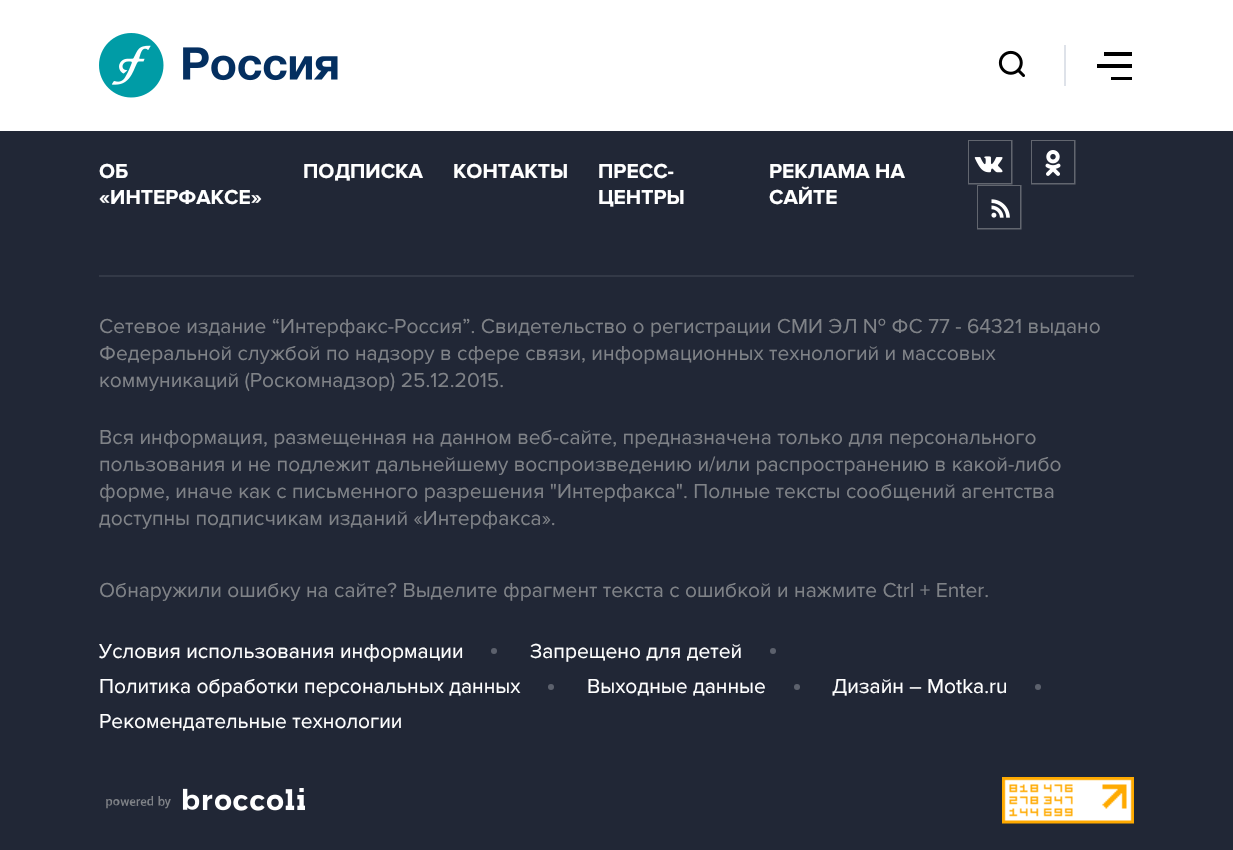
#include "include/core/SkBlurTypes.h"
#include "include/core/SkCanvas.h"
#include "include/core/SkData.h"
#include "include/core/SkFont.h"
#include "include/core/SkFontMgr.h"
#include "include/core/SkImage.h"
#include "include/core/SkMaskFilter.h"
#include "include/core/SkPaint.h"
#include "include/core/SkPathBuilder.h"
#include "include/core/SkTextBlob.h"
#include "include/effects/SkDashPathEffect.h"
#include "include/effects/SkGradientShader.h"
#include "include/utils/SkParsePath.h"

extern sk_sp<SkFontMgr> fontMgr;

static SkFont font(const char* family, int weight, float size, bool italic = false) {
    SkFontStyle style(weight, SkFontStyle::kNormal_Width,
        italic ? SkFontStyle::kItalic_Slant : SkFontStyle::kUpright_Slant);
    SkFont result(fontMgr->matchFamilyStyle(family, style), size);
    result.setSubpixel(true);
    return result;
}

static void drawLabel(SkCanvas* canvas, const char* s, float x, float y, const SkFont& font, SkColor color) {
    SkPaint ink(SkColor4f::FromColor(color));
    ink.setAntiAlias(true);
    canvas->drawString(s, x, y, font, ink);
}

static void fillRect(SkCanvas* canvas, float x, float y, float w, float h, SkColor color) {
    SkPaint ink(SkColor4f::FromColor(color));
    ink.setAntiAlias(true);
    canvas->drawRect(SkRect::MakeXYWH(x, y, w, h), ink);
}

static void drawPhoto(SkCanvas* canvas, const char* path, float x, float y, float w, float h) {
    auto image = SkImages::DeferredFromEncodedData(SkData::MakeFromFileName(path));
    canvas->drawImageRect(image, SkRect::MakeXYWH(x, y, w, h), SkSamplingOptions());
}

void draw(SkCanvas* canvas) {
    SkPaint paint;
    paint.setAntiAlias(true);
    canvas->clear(0xFF212736);
    fillRect(canvas, 0, 0, 1233, 131, 0xFFFFFFFF);
    drawPhoto(canvas, "assets/img1.png", 99, 33, 239, 65);
    fillRect(canvas, 1064, 45, 2, 41, 0xFFDEE2E9);
    drawPhoto(canvas, "assets/img2.png", 998, 50, 27, 27);
    fillRect(canvas, 1104, 52, 28, 4, 0xFF000000);
    fillRect(canvas, 1097, 64, 35, 4, 0xFF000000);
    fillRect(canvas, 1111, 77, 21, 3, 0xFF000000);
    fillRect(canvas, 99, 275, 1035, 2, 0xFF333947);
    SkFont font1 = font("Proxima Nova", 700, 21);
    drawLabel(canvas, "ОБ", 99, 178, font1, 0xFFFFFFFF);
    drawLabel(canvas, "«ИНТЕРФАКСЕ»", 99, 204, font1, 0xFFFFFFFF);
    drawLabel(canvas, "ПОДПИСКА", 303, 178, font1, 0xFFFFFFFF);
    drawLabel(canvas, "КОНТАКТЫ", 453, 178, font1, 0xFFFFFFFF);
    drawLabel(canvas, "ПРЕСС-", 598, 178, font1, 0xFFFFFFFF);
    drawLabel(canvas, "ЦЕНТРЫ", 598, 204, font1, 0xFFFFFFFF);
    drawLabel(canvas, "РЕКЛАМА НА", 769, 178, font1, 0xFFFFFFFF);
    drawLabel(canvas, "САЙТЕ", 769, 204, font1, 0xFFFFFFFF);
    drawPhoto(canvas, "assets/img3.png", 968, 140, 45, 45);
    drawPhoto(canvas, "assets/img4.png", 1031, 140, 45, 45);
    drawPhoto(canvas, "assets/img5.png", 977, 185, 45, 45);
    SkFont font2 = font("Proxima Nova", 400, 21);
    drawLabel(canvas, "Сетевое издание “Интерфакс-Россия”. Свидетельство о регистрации СМИ ЭЛ № ФС 77 - 64321 выдано", 99, 333, font2, 0xFF7F8287);
    drawLabel(canvas, "Федеральной службой по надзору в сфере связи, информационных технологий и массовых", 99, 360, font2, 0xFF7F8287);
    drawLabel(canvas, "коммуникаций (Роскомнадзор) 25.12.2015.", 99, 387, font2, 0xFF7F8287);
    drawLabel(canvas, "Вся информация, размещенная на данном веб-сайте, предназначена только для персонального", 99, 444, font2, 0xFF7F8287);
    drawLabel(canvas, "пользования и не подлежит дальнейшему воспроизведению и/или распространению в какой-либо", 99, 471, font2, 0xFF7F8287);
    drawLabel(canvas, "форме, иначе как с письменного разрешения \"Интерфакса\". Полные тексты сообщений агентства", 99, 498, font2, 0xFF7F8287);
    drawLabel(canvas, "доступны подписчикам изданий «Интерфакса».", 99, 525, font2, 0xFF7F8287);
    drawLabel(canvas, "Обнаружили ошибку на сайте? Выделите фрагмент текста с ошибкой и нажмите Ctrl + Enter.", 99, 597, font2, 0xFF7F8287);
    drawLabel(canvas, "Условия использования информации", 99, 658, font2, 0xFFFFFFFF);
    paint.setColor(0xFF5C616D);
    canvas->drawCircle(494, 651, 3, paint);
    drawLabel(canvas, "Запрещено для детей", 530, 658, font2, 0xFFFFFFFF);
    canvas->drawCircle(773, 651, 3, paint);
    drawLabel(canvas, "Политика обработки персональных данных", 99, 693, font2, 0xFFFFFFFF);
    canvas->drawCircle(551, 687, 3, paint);
    drawLabel(canvas, "Выходные данные", 587, 693, font2, 0xFFFFFFFF);
    canvas->drawCircle(797, 687, 3, paint);
    drawLabel(canvas, "Дизайн – Motka.ru", 832, 693, font2, 0xFFFFFFFF);
    canvas->drawCircle(1038, 687, 3, paint);
    drawLabel(canvas, "Рекомендательные технологии", 99, 728, font2, 0xFFFFFFFF);
    drawPhoto(canvas, "assets/img6.png", 106, 788, 199, 23);
    drawPhoto(canvas, "assets/img7.png", 1002, 777, 132, 47);
}
